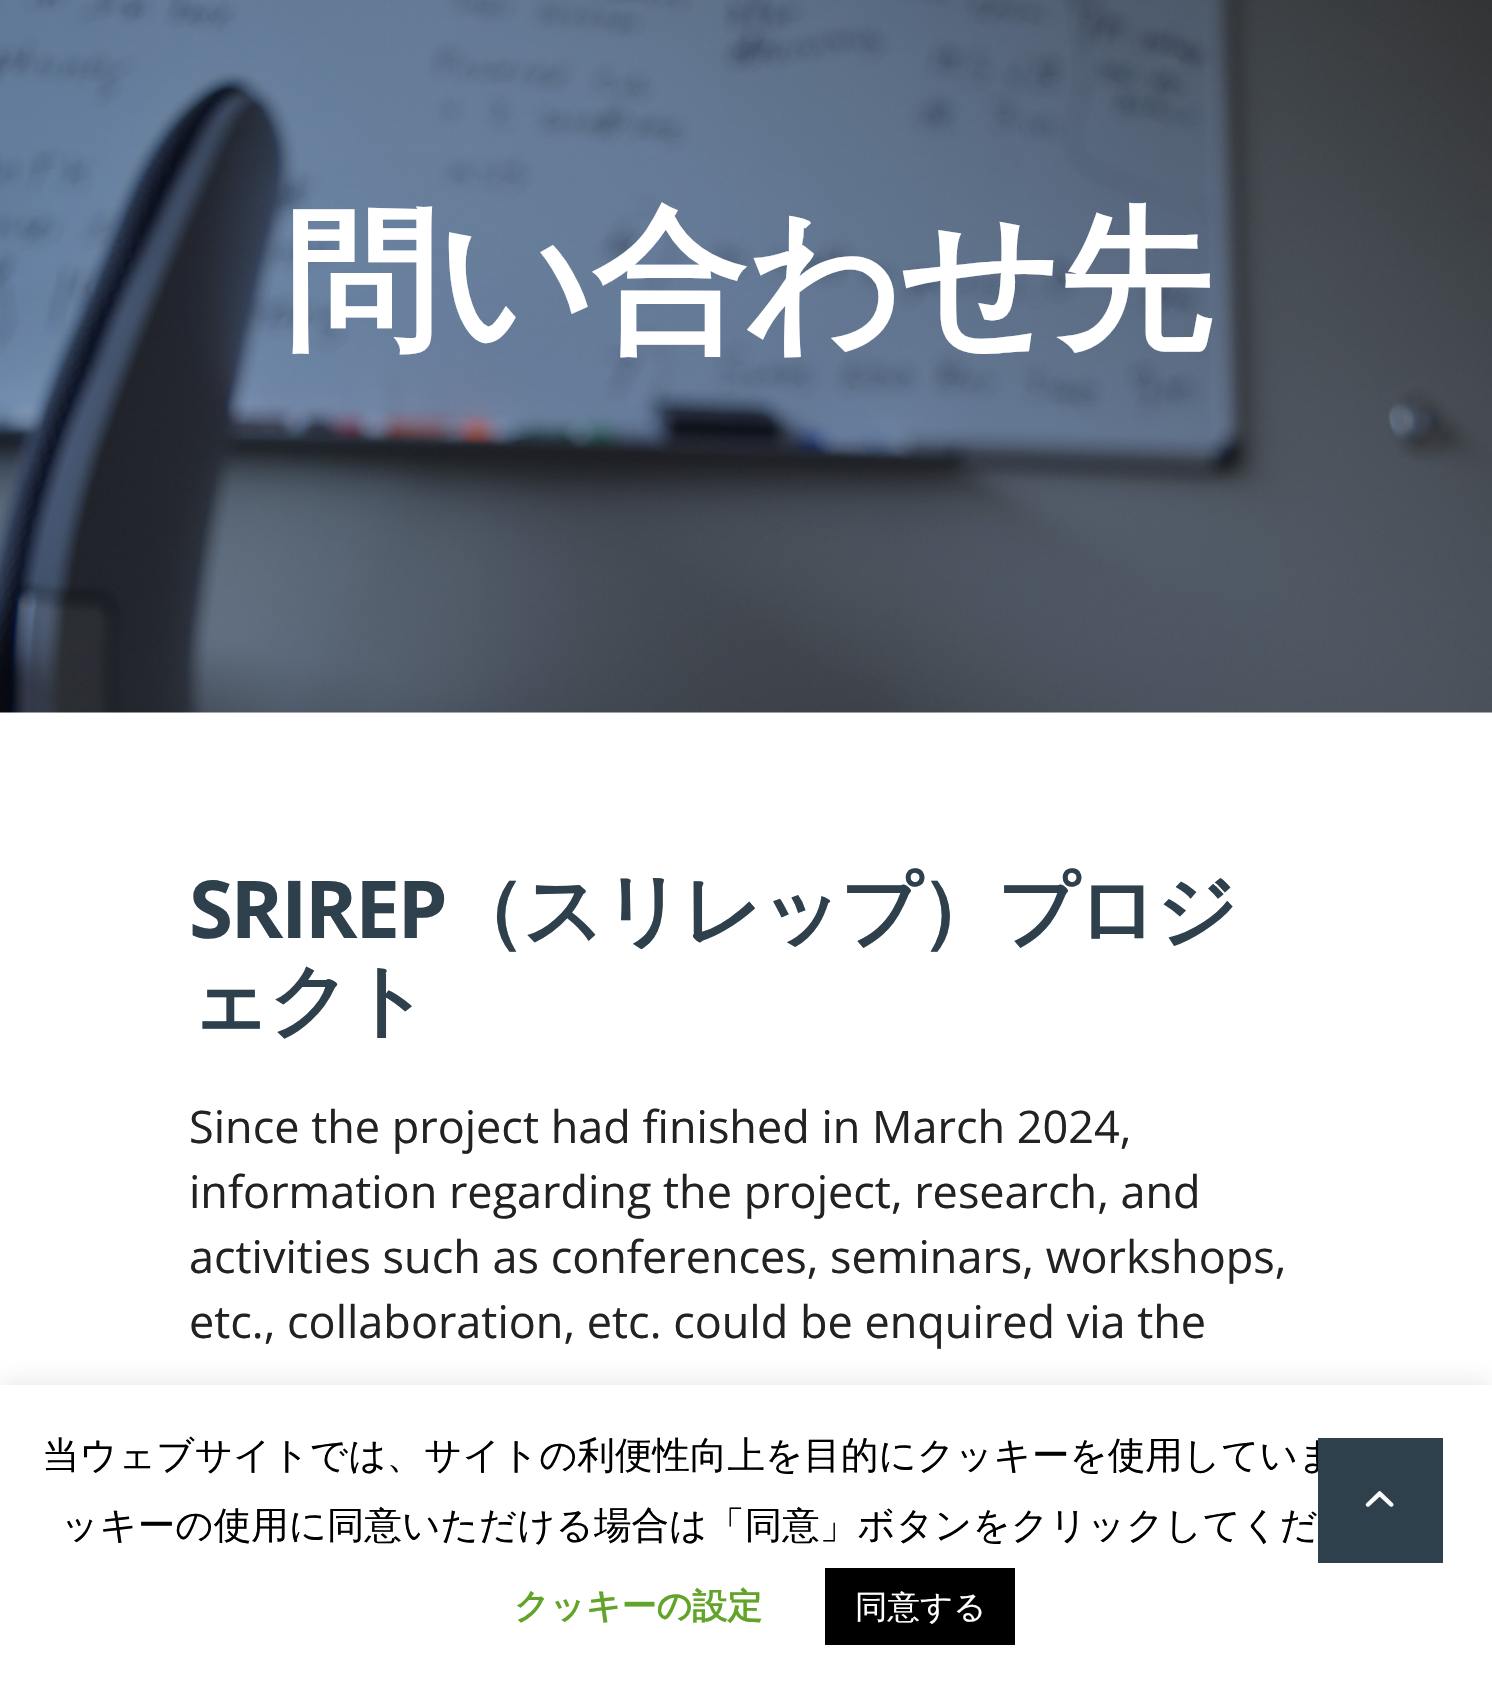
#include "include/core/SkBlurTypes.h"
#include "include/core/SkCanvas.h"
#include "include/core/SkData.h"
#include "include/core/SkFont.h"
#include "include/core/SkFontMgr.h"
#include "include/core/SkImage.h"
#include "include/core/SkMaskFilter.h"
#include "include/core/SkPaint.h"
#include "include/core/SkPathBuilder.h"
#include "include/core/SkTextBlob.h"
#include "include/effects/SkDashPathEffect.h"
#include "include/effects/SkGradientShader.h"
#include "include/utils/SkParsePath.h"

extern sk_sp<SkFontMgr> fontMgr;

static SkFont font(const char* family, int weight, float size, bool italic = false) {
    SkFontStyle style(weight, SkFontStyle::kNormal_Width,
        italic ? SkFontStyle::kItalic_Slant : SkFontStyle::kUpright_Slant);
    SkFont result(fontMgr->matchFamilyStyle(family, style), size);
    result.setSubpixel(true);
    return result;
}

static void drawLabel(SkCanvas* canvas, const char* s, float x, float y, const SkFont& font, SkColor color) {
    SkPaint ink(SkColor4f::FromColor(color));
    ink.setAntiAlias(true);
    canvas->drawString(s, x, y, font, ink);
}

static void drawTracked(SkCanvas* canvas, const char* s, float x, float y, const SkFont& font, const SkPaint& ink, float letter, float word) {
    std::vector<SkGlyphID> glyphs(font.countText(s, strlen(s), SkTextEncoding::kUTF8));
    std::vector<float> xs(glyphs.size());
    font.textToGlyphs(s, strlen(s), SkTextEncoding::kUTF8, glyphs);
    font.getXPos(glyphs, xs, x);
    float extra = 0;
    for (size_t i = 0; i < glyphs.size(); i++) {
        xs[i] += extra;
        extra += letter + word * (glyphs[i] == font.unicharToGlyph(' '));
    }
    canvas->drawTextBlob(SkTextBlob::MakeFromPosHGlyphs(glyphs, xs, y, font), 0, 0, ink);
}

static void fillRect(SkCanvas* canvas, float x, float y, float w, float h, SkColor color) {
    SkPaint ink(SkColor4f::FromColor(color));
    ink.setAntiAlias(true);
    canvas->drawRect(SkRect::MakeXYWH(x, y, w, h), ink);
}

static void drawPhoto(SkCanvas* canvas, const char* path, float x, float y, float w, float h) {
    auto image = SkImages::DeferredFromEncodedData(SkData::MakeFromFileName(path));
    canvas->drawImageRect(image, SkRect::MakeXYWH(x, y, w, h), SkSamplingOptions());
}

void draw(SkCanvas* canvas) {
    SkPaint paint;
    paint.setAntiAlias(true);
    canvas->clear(0xFFFDFBF8);
    drawPhoto(canvas, "assets/img1.png", 0, 0, 1492, 713);
    SkFont font1 = font("WenQuanYi Zen Hei", 700, 155);
    paint.setColor(0xFFFFFFFF);
    drawTracked(canvas, "問い合わせ先", 283, 335, font1, paint, -2.5f, 0);
    fillRect(canvas, 0, 713, 1492, 672, 0xFFFFFFFF);
    SkFont font2 = font("Open Sans", 700, 80);
    paint.setColor(0xFF2E404B);
    drawTracked(canvas, "SRIREP", 189, 938, font2, paint, -2.5f, 0);
    SkFont font3 = font("WenQuanYi Zen Hei", 700, 80);
    drawTracked(canvas, "（スリレップ）プロジ", 445, 938, font3, paint, -2.5f, 0);
    drawTracked(canvas, "ェクト", 189, 1028, font3, paint, -2.5f, 0);
    SkFont font4 = font("Open Sans", 400, 45);
    drawLabel(canvas, "Since the project had finished in March 2024,", 189, 1143, font4, 0xFF222222);
    drawLabel(canvas, "information regarding the project, research, and", 189, 1208, font4, 0xFF222222);
    drawLabel(canvas, "activities such as conferences, seminars, workshops,", 189, 1273, font4, 0xFF222222);
    drawLabel(canvas, "etc., collaboration, etc. could be enquired via the", 189, 1338, font4, 0xFF222222);
    paint.setColor(0x4DACABAB);
    paint.setMaskFilter(SkMaskFilter::MakeBlur(kNormal_SkBlurStyle, 12.5f));
    canvas->drawRect(SkRect::MakeXYWH(0, 1383, 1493, 302), paint);
    paint.setMaskFilter(nullptr);
    fillRect(canvas, 0, 1385, 1492, 301, 0xFFFFFFFF);
    SkFont font5 = font("WenQuanYi Zen Hei", 500, 37.5f);
    drawLabel(canvas, "当ウェブサイトでは、サイトの利便性向上を目的にクッキーを使用していま", 42, 1468, font5, 0xFF000000);
    fillRect(canvas, 1318, 1438, 125, 125, 0xFF2E404B);
    drawPhoto(canvas, "assets/img2.png", 1365, 1491, 29, 16);
    drawLabel(canvas, "ッキーの使用に同意いただける場合は「同意」ボタンをクリックしてくだ", 61, 1538, font5, 0xFF000000);
    SkFont font6 = font("WenQuanYi Zen Hei", 700, 35);
    drawLabel(canvas, "クッキーの設定", 514, 1618, font6, 0xFF62A329);
    fillRect(canvas, 825, 1568, 190, 77, 0xFF000000);
    SkFont font7 = font("WenQuanYi Zen Hei", 500, 32.5f);
    drawLabel(canvas, "同意する", 855, 1618, font7, 0xFFFFFFFF);
}
